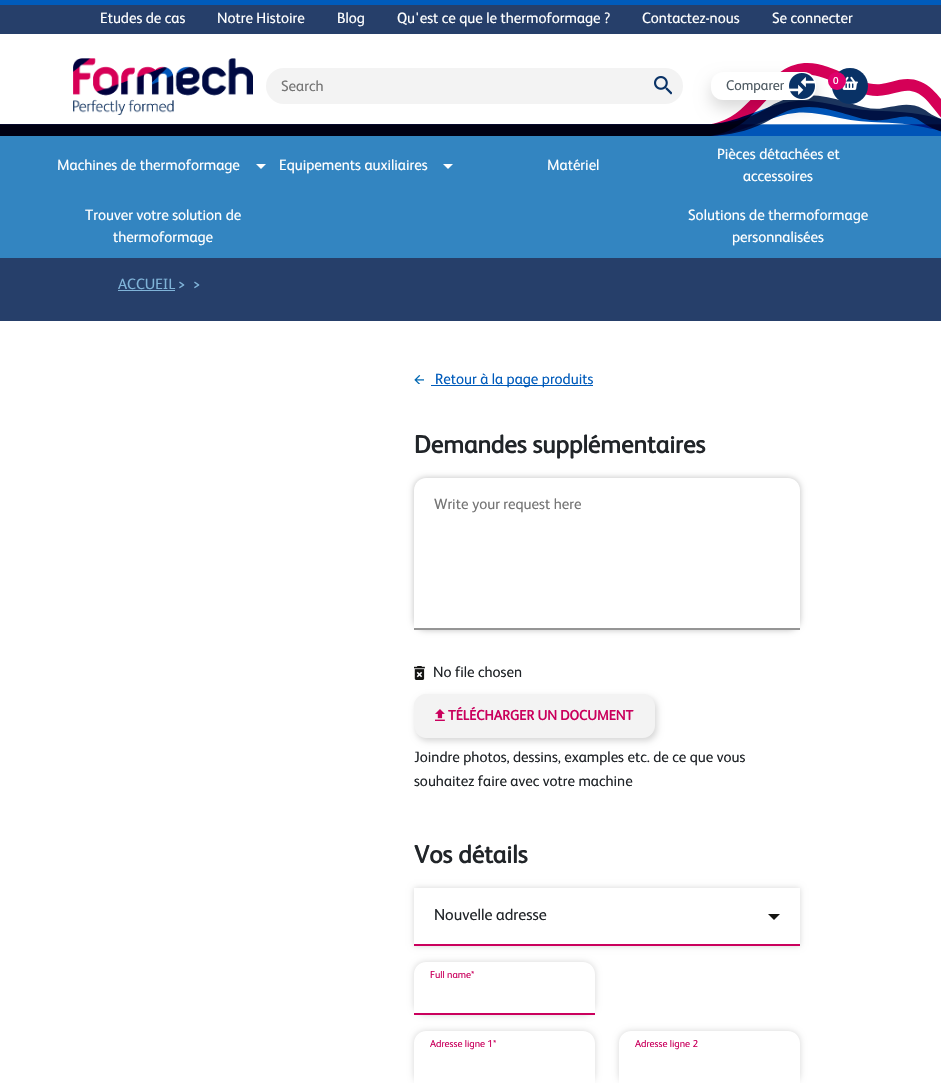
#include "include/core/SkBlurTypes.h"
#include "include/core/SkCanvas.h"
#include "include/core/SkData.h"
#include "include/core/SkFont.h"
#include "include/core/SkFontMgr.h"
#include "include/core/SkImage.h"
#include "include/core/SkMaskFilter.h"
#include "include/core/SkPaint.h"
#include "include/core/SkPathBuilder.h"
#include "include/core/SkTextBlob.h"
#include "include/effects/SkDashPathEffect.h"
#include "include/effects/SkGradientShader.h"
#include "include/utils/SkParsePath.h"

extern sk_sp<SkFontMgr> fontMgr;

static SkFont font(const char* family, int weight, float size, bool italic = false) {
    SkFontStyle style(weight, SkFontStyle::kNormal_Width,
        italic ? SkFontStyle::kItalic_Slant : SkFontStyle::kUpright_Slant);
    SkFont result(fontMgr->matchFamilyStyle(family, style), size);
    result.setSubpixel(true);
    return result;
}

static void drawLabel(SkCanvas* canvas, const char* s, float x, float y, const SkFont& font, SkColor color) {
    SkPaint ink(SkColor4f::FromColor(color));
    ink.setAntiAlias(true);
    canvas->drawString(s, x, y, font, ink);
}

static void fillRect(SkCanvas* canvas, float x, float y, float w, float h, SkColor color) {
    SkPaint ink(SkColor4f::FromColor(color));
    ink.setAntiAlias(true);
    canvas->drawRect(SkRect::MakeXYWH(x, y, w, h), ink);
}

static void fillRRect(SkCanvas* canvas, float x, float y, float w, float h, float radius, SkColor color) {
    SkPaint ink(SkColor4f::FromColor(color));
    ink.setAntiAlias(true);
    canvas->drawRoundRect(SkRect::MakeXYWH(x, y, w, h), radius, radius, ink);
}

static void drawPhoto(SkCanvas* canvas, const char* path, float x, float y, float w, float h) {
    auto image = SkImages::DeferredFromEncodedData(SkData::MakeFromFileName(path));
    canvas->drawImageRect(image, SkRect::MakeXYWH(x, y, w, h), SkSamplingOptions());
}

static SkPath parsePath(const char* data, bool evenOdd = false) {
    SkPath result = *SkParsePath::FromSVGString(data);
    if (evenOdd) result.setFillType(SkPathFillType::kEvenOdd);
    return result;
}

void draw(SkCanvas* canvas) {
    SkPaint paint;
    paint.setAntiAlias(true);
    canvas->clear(0xFFFFFFFF);
    fillRect(canvas, 0, 5, 941, 29, 0xFF263F6A);
    fillRect(canvas, 0, 0, 941, 5, 0xFF005BBB);
    SkFont font1 = font("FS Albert", 400, 15);
    drawLabel(canvas, "Etudes de cas", 100, 23, font1, 0xFFFFFFFF);
    drawLabel(canvas, "Notre Histoire", 217, 23, font1, 0xFFFFFFFF);
    drawLabel(canvas, "Blog", 337, 23, font1, 0xFFFFFFFF);
    drawLabel(canvas, "Qu'est ce que le thermoformage ?", 397, 23, font1, 0xFFFFFFFF);
    drawLabel(canvas, "Contactez-nous", 642, 23, font1, 0xFFFFFFFF);
    drawLabel(canvas, "Se connecter", 772, 23, font1, 0xFFFFFFFF);
    drawPhoto(canvas, "assets/img2.png", 73, 58, 180, 57);
    drawPhoto(canvas, "assets/img1.png", 0, 63, 941, 73);
    fillRRect(canvas, 266, 68, 417, 36, 18, 0xFFF3F3F3);
    drawLabel(canvas, "Search", 281, 91, font1, 0xFF757575);
    drawPhoto(canvas, "assets/img3.png", 654, 76, 18, 19);
    paint.setColor(0x26000000);
    paint.setMaskFilter(SkMaskFilter::MakeBlur(kNormal_SkBlurStyle, 8));
    canvas->drawRoundRect(SkRect::MakeXYWH(711, 80, 105, 28), 12, 12, paint);
    paint.setMaskFilter(nullptr);
    paint.setColor(0xFF093266);
    canvas->drawCircle(850, 86, 18, paint);
    drawPhoto(canvas, "assets/img4.png", 842, 76, 16, 14);
    fillRRect(canvas, 711, 72, 105, 28, 12, 0xFFFFFFFF);
    SkFont font2 = font("FS Albert", 400, 14);
    drawLabel(canvas, "Comparer", 726, 90, font2, 0xFF4D5961);
    drawPhoto(canvas, "assets/img5.png", 789, 73, 26, 26);
    paint.setColor(0xFFE0006C);
    canvas->drawCircle(837, 81, 9, paint);
    SkFont font3 = font("FS Albert", 400, 10);
    drawLabel(canvas, "0", 833, 84, font3, 0xFFFFFFFF);
    fillRect(canvas, 0, 136, 941, 122, 0xFF3385C1);
    drawLabel(canvas, "Machines de thermoformage", 57, 170, font1, 0xFFFFFFFF);
    paint.setColor(0xFFFFFFFF);
    canvas->drawPath(parsePath("M256 164L261 169L266 164Z"), paint);
    drawLabel(canvas, "Equipements auxiliaires", 279, 170, font1, 0xFFFFFFFF);
    canvas->drawPath(parsePath("M443 164L448 169L453 164Z"), paint);
    drawLabel(canvas, "Matériel", 547, 170, font1, 0xFFFFFFFF);
    drawLabel(canvas, "Pièces détachées et", 717, 159, font1, 0xFFFFFFFF);
    drawLabel(canvas, "accessoires", 743, 181, font1, 0xFFFFFFFF);
    drawLabel(canvas, "Trouver votre solution de", 85, 220, font1, 0xFFFFFFFF);
    drawLabel(canvas, "thermoformage", 113, 242, font1, 0xFFFFFFFF);
    drawLabel(canvas, "Solutions de thermoformage", 688, 220, font1, 0xFFFFFFFF);
    drawLabel(canvas, "personnalisées", 732, 242, font1, 0xFFFFFFFF);
    fillRect(canvas, 0, 258, 941, 63, 0xFF263F6A);
    drawLabel(canvas, "ACCUEIL", 118, 289, font1, 0xFF7FB3D8);
    fillRect(canvas, 118, 290, 57, 1, 0xFF7FB3D8);
    drawLabel(canvas, ">", 178, 290, font1, 0xFF7FB3D8);
    drawLabel(canvas, ">", 193, 290, font1, 0xFF7FB3D8);
    drawPhoto(canvas, "assets/img6.png", 414, 375, 10, 9);
    fillRect(canvas, 431, 385, 162, 1, 0xFF005BBB);
    drawLabel(canvas, "Retour à la page produits", 435, 384, font1, 0xFF005BBB);
    SkFont font4 = font("FS Albert", 700, 25);
    drawLabel(canvas, "Demandes supplémentaires", 414, 453, font4, 0xFF212529);
    paint.setColor(0x40000000);
    paint.setMaskFilter(SkMaskFilter::MakeBlur(kNormal_SkBlurStyle, 3));
    canvas->drawRoundRect(SkRect::MakeXYWH(414, 478, 386, 152), 12, 12, paint);
    paint.setMaskFilter(nullptr);
    paint.setColor(0xFFFFFFFF);
    canvas->drawPath(parsePath("M426 478H788C794.5 478 800 483.5 800 490V630H414V490C414 483.5 419.5 478 426 478Z"), paint);
    fillRect(canvas, 414, 628, 386, 2, 0xFF959595);
    drawLabel(canvas, "Write your request here", 434, 509, font1, 0xFF757575);
    drawPhoto(canvas, "assets/img7.png", 414, 666, 11, 14);
    drawLabel(canvas, "No file chosen", 433, 677, font1, 0xFF212529);
    paint.setColor(0x29000000);
    paint.setMaskFilter(SkMaskFilter::MakeBlur(kNormal_SkBlurStyle, 3));
    canvas->drawRoundRect(SkRect::MakeXYWH(416, 697, 241, 44), 12, 12, paint);
    paint.setMaskFilter(nullptr);
    paint.setColor(0xFFF3F3F3);
    canvas->drawRoundRect(SkRect::MakeXYWH(414.5f, 694.5f, 240, 43), 11.5f, 11.5f, paint);
    paint.setStroke(true);
    paint.setStrokeWidth(1);
    canvas->drawRoundRect(SkRect::MakeXYWH(414.5f, 694.5f, 240, 43), 11.5f, 11.5f, paint);
    drawPhoto(canvas, "assets/img8.png", 435, 709, 10, 12);
    SkFont font5 = font("FS Albert", 700, 14);
    drawLabel(canvas, "TÉLÉCHARGER UN DOCUMENT", 448, 720, font5, 0xFFCA005D);
    drawLabel(canvas, "Joindre photos, dessins, examples etc. de ce que vous", 414, 762, font1, 0xFF212529);
    drawLabel(canvas, "souhaitez faire avec votre machine", 414, 786, font1, 0xFF212529);
    drawLabel(canvas, "Vos détails", 414, 863, font4, 0xFF212529);
    canvas->save();
    canvas->clipPath(parsePath("M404 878H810V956H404ZM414 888H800V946H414Z", true), true);
    paint.setStroke(false);
    paint.setColor(0x29000000);
    paint.setMaskFilter(SkMaskFilter::MakeBlur(kNormal_SkBlurStyle, 3));
    canvas->drawRect(SkRect::MakeXYWH(414, 888, 386, 58), paint);
    paint.setMaskFilter(nullptr);
    canvas->restore();
    fillRect(canvas, 414, 944, 386, 2, 0xFFCA005D);
    SkFont font6 = font("FS Albert", 400, 16);
    drawLabel(canvas, "Nouvelle adresse", 434, 920, font6, 0xFF212529);
    paint.setColor(0xFF141412);
    canvas->drawPath(parsePath("M768 914L774 920L780 914Z"), paint);
    canvas->save();
    canvas->clipPath(parsePath("M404 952H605V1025H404ZM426 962H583C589.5 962 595 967.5 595 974V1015H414V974C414 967.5 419.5 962 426 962Z", true), true);
    paint.setColor(0x29000000);
    paint.setMaskFilter(SkMaskFilter::MakeBlur(kNormal_SkBlurStyle, 3));
    canvas->drawRoundRect(SkRect::MakeXYWH(414, 962, 181, 53), 12, 12, paint);
    paint.setMaskFilter(nullptr);
    canvas->restore();
    fillRect(canvas, 414, 1013, 181, 2, 0xFFCA005D);
    drawLabel(canvas, "Full name*", 430, 978, font3, 0xFFCA005D);
    canvas->save();
    canvas->clipPath(parsePath("M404 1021H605V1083H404ZM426 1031H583C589.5 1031 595 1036.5 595 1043V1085H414V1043C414 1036.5 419.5 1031 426 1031Z", true), true);
    paint.setMaskFilter(SkMaskFilter::MakeBlur(kNormal_SkBlurStyle, 3));
    canvas->drawRoundRect(SkRect::MakeXYWH(414, 1031, 181, 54), 12, 12, paint);
    paint.setMaskFilter(nullptr);
    canvas->restore();
    drawLabel(canvas, "Adresse ligne 1*", 430, 1047, font3, 0xFFCA005D);
    canvas->save();
    canvas->clipPath(parsePath("M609 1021H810V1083H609ZM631 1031H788C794.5 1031 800 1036.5 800 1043V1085H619V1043C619 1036.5 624.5 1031 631 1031Z", true), true);
    paint.setMaskFilter(SkMaskFilter::MakeBlur(kNormal_SkBlurStyle, 3));
    canvas->drawRoundRect(SkRect::MakeXYWH(619, 1031, 181, 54), 12, 12, paint);
    paint.setMaskFilter(nullptr);
    canvas->restore();
    drawLabel(canvas, "Adresse ligne 2", 635, 1047, font3, 0xFFCA005D);
}
